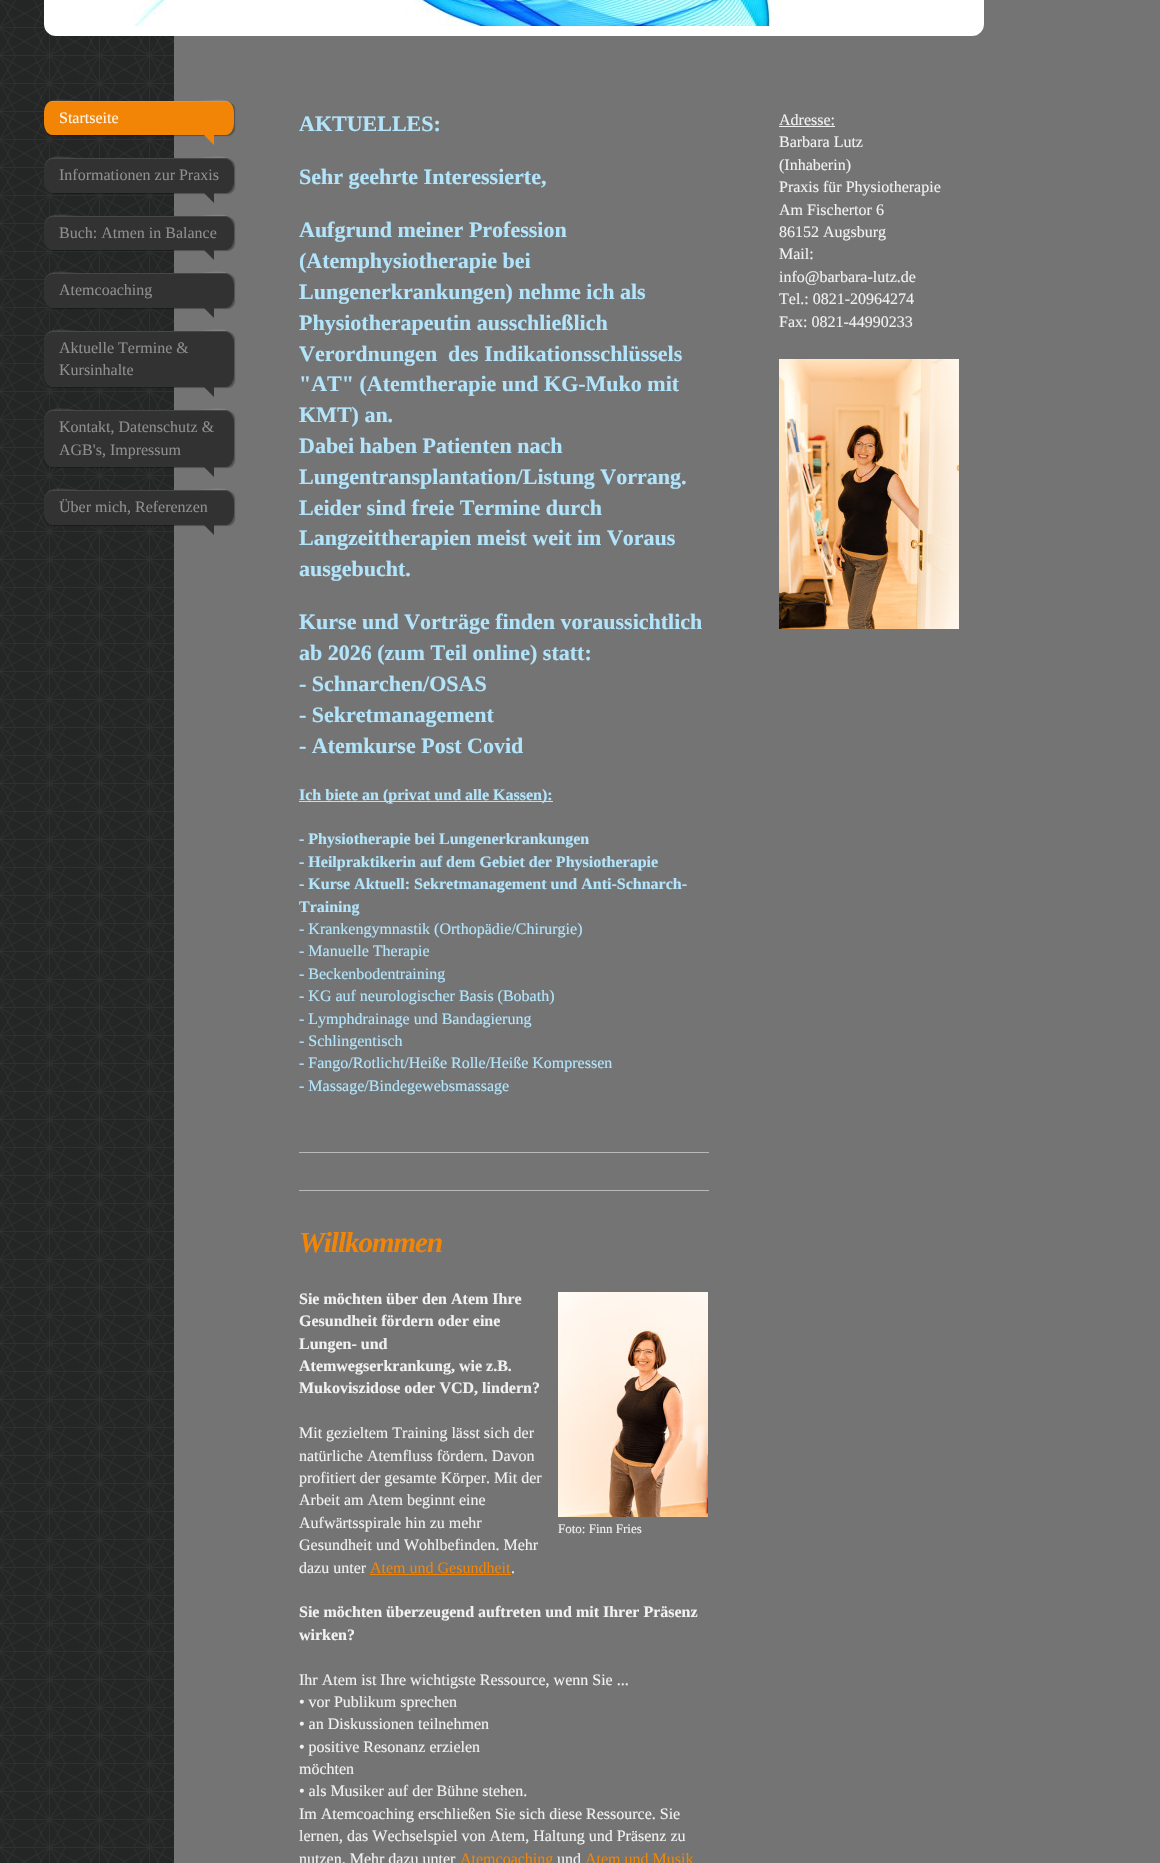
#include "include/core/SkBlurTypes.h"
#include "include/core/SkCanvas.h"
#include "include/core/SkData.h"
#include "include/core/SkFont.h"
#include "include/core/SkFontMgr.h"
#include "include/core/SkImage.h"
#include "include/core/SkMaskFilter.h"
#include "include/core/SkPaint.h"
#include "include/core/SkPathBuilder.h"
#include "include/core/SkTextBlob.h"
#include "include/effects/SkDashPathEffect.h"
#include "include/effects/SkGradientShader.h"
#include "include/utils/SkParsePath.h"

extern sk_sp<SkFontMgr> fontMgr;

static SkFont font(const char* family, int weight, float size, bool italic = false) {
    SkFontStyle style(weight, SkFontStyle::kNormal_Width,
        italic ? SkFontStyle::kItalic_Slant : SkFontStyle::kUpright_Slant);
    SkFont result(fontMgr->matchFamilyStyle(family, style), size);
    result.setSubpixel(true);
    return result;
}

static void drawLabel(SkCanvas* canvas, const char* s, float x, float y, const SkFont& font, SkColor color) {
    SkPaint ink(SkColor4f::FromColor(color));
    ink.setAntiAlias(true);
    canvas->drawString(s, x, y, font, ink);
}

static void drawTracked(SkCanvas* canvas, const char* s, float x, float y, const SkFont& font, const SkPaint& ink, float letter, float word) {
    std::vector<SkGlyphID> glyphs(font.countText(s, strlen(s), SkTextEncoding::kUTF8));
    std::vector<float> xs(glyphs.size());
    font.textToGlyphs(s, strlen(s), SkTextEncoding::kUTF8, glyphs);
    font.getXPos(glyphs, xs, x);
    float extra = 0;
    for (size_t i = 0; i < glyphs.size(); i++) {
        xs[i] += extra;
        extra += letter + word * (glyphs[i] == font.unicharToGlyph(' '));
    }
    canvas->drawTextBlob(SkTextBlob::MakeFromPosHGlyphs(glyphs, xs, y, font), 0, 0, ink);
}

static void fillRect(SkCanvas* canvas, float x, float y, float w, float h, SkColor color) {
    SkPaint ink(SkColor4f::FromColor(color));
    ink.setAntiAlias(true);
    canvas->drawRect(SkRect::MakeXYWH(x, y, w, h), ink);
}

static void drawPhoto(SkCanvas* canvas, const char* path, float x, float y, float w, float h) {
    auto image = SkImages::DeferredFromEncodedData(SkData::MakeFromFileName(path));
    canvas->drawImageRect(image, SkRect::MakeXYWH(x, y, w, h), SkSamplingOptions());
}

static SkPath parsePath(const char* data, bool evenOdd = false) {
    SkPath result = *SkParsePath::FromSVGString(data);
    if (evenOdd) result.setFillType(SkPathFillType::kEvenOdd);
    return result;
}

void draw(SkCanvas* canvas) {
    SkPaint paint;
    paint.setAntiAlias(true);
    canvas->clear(0xFF242525);
    drawPhoto(canvas, "assets/img1.png", 0, 0, 174, 1863);
    fillRect(canvas, 174, 0, 986, 1863, 0xFF747474);
    paint.setStroke(true);
    paint.setStrokeWidth(10);
    paint.setColor(0xFFFFFFFF);
    canvas->drawRoundRect(SkRect::MakeXYWH(49, -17, 930, 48), 7, 7, paint);
    drawPhoto(canvas, "assets/img2.png", 54, 0, 920, 26);
    paint.setStroke(false);
    paint.setColor(0x4D000000);
    paint.setMaskFilter(SkMaskFilter::MakeBlur(kNormal_SkBlurStyle, 0.5f));
    canvas->drawRoundRect(SkRect::MakeXYWH(45, 102, 190, 34), 8, 8, paint);
    paint.setMaskFilter(nullptr);
    paint.setColor(0xFFF28505);
    canvas->drawPath(parsePath("M52 101H226C230 101 234 106 234 113V123C234 130 230 135 226 135H52C48 135 44 130 44 123V113C44 106 48 101 52 101Z"), paint);
    paint.setColor(0x1AFFFFFF);
    canvas->drawPath(parsePath("M52 102H226C230 102 234 107 234 114C234 93 213 101 197 101H81C65 101 44 93 44 114C44 107 48 102 52 102Z"), paint);
    SkFont font1 = font("Liberation Serif", 400, 16);
    drawLabel(canvas, "Startseite", 59, 123, font1, 0xFFFEF3E6);
    paint.setColor(0xFFF28505);
    canvas->drawPath(parsePath("M204 135H214V145Z"), paint);
    paint.setColor(0x4D000000);
    paint.setMaskFilter(SkMaskFilter::MakeBlur(kNormal_SkBlurStyle, 0.5f));
    canvas->drawRoundRect(SkRect::MakeXYWH(45, 159, 190, 35), 8, 8, paint);
    paint.setMaskFilter(nullptr);
    paint.setColor(0xFF333232);
    canvas->drawPath(parsePath("M52 158H226C230 158 234 163 234 170V181C234 188 230 193 226 193H52C48 193 44 188 44 181V170C44 163 48 158 52 158Z"), paint);
    paint.setColor(0x1AFFFFFF);
    canvas->drawPath(parsePath("M52 159H226C230 159 234 164 234 171C234 150 213 158 197 158H81C65 158 44 150 44 171C44 164 48 159 52 159Z"), paint);
    drawLabel(canvas, "Informationen zur Praxis", 59, 180, font1, 0xFF8F8D8D);
    paint.setColor(0xFF333232);
    canvas->drawPath(parsePath("M204 193H214V203Z"), paint);
    paint.setColor(0x4D000000);
    paint.setMaskFilter(SkMaskFilter::MakeBlur(kNormal_SkBlurStyle, 0.5f));
    canvas->drawRoundRect(SkRect::MakeXYWH(45, 217, 190, 34), 8, 8, paint);
    paint.setMaskFilter(nullptr);
    paint.setColor(0xFF333232);
    canvas->drawPath(parsePath("M52 216H226C230 216 234 221 234 228V238C234 245 230 250 226 250H52C48 250 44 245 44 238V228C44 221 48 216 52 216Z"), paint);
    paint.setColor(0x1AFFFFFF);
    canvas->drawPath(parsePath("M52 217H226C230 217 234 222 234 229C234 208 213 216 197 216H81C65 216 44 208 44 229C44 222 48 217 52 217Z"), paint);
    drawLabel(canvas, "Buch: Atmen in Balance", 59, 238, font1, 0xFF8F8D8D);
    paint.setColor(0xFF333232);
    canvas->drawPath(parsePath("M204 250H214V260Z"), paint);
    paint.setColor(0x4D000000);
    paint.setMaskFilter(SkMaskFilter::MakeBlur(kNormal_SkBlurStyle, 0.5f));
    canvas->drawRoundRect(SkRect::MakeXYWH(45, 274, 190, 35), 8, 8, paint);
    paint.setMaskFilter(nullptr);
    paint.setColor(0xFF333232);
    canvas->drawPath(parsePath("M52 273H226C230 273 234 278 234 285V296C234 303 230 308 226 308H52C48 308 44 303 44 296V285C44 278 48 273 52 273Z"), paint);
    paint.setColor(0x1AFFFFFF);
    canvas->drawPath(parsePath("M52 274H226C230 274 234 279 234 286C234 265 213 273 197 273H81C65 273 44 265 44 286C44 279 48 274 52 274Z"), paint);
    drawLabel(canvas, "Atemcoaching", 59, 295, font1, 0xFF8F8D8D);
    paint.setColor(0xFF333232);
    canvas->drawPath(parsePath("M204 308H214V318Z"), paint);
    paint.setColor(0x4D000000);
    paint.setMaskFilter(SkMaskFilter::MakeBlur(kNormal_SkBlurStyle, 0.5f));
    canvas->drawRoundRect(SkRect::MakeXYWH(45, 332, 190, 56), 8, 8, paint);
    paint.setMaskFilter(nullptr);
    paint.setColor(0xFF333232);
    canvas->drawPath(parsePath("M52 331H226C230 331 234 336 234 343V375C234 382 230 387 226 387H52C48 387 44 382 44 375V343C44 336 48 331 52 331Z"), paint);
    paint.setColor(0x1AFFFFFF);
    canvas->drawPath(parsePath("M52 332H226C230 332 234 337 234 344C234 323 213 331 197 331H81C65 331 44 323 44 344C44 337 48 332 52 332Z"), paint);
    drawLabel(canvas, "Aktuelle Termine &", 59, 353, font1, 0xFF8F8D8D);
    drawLabel(canvas, "Kursinhalte", 59, 375, font1, 0xFF8F8D8D);
    paint.setColor(0xFF333232);
    canvas->drawPath(parsePath("M204 387H214V397Z"), paint);
    paint.setColor(0x4D000000);
    paint.setMaskFilter(SkMaskFilter::MakeBlur(kNormal_SkBlurStyle, 0.5f));
    canvas->drawRoundRect(SkRect::MakeXYWH(45, 411, 190, 57), 8, 8, paint);
    paint.setMaskFilter(nullptr);
    paint.setColor(0xFF333232);
    canvas->drawPath(parsePath("M52 410H226C230 410 234 415 234 422V455C234 462 230 467 226 467H52C48 467 44 462 44 455V422C44 415 48 410 52 410Z"), paint);
    paint.setColor(0x1AFFFFFF);
    canvas->drawPath(parsePath("M52 411H226C230 411 234 416 234 423C234 402 213 410 197 410H81C65 410 44 402 44 423C44 416 48 411 52 411Z"), paint);
    drawLabel(canvas, "Kontakt, Datenschutz &", 59, 432, font1, 0xFF8F8D8D);
    drawLabel(canvas, "AGB's, Impressum", 59, 455, font1, 0xFF8F8D8D);
    paint.setColor(0xFF333232);
    canvas->drawPath(parsePath("M204 467H214V477Z"), paint);
    paint.setColor(0x4D000000);
    paint.setMaskFilter(SkMaskFilter::MakeBlur(kNormal_SkBlurStyle, 0.5f));
    canvas->drawRoundRect(SkRect::MakeXYWH(45, 491, 190, 35), 8, 8, paint);
    paint.setMaskFilter(nullptr);
    paint.setColor(0xFF333232);
    canvas->drawPath(parsePath("M52 490H226C230 490 234 495 234 502V513C234 520 230 525 226 525H52C48 525 44 520 44 513V502C44 495 48 490 52 490Z"), paint);
    paint.setColor(0x1AFFFFFF);
    canvas->drawPath(parsePath("M52 491H226C230 491 234 496 234 503C234 482 213 490 197 490H81C65 490 44 482 44 503C44 496 48 491 52 491Z"), paint);
    drawLabel(canvas, "Über mich, Referenzen", 59, 512, font1, 0xFF8F8D8D);
    paint.setColor(0xFF333232);
    canvas->drawPath(parsePath("M204 525H214V535Z"), paint);
    SkFont font2 = font("Liberation Serif", 700, 22);
    drawLabel(canvas, "AKTUELLES:", 299, 131, font2, 0xFFB2E5FC);
    drawLabel(canvas, "Sehr geehrte Interessierte,", 299, 184, font2, 0xFFB2E5FC);
    drawLabel(canvas, "Aufgrund meiner Profession", 299, 237, font2, 0xFFB2E5FC);
    drawLabel(canvas, "(Atemphysiotherapie bei", 299, 268, font2, 0xFFB2E5FC);
    drawLabel(canvas, "Lungenerkrankungen) nehme ich als", 299, 299, font2, 0xFFB2E5FC);
    drawLabel(canvas, "Physiotherapeutin ausschließlich", 299, 330, font2, 0xFFB2E5FC);
    drawLabel(canvas, "Verordnungen  des Indikationsschlüssels", 299, 361, font2, 0xFFB2E5FC);
    drawLabel(canvas, "\"AT\" (Atemtherapie und KG-Muko mit", 299, 391, font2, 0xFFB2E5FC);
    drawLabel(canvas, "KMT) an.", 299, 422, font2, 0xFFB2E5FC);
    drawLabel(canvas, "Dabei haben Patienten nach", 299, 453, font2, 0xFFB2E5FC);
    drawLabel(canvas, "Lungentransplantation/Listung Vorrang.", 299, 484, font2, 0xFFB2E5FC);
    drawLabel(canvas, "Leider sind freie Termine durch", 299, 515, font2, 0xFFB2E5FC);
    drawLabel(canvas, "Langzeittherapien meist weit im Voraus", 299, 545, font2, 0xFFB2E5FC);
    drawLabel(canvas, "ausgebucht.", 299, 576, font2, 0xFFB2E5FC);
    drawLabel(canvas, "Kurse und Vorträge finden voraussichtlich", 299, 629, font2, 0xFFB2E5FC);
    drawLabel(canvas, "ab 2026 (zum Teil online) statt:", 299, 660, font2, 0xFFB2E5FC);
    drawLabel(canvas, "- Schnarchen/OSAS", 299, 691, font2, 0xFFB2E5FC);
    drawLabel(canvas, "- Sekretmanagement", 299, 722, font2, 0xFFB2E5FC);
    drawLabel(canvas, "- Atemkurse Post Covid", 299, 753, font2, 0xFFB2E5FC);
    fillRect(canvas, 299, 801, 118, 1, 0xFFB2E5FC);
    SkFont font3 = font("Liberation Serif", 700, 16);
    drawLabel(canvas, "Ich biete an (priv", 299, 800, font3, 0xFFB2E5FC);
    fillRect(canvas, 417, 801, 136, 1, 0xFFB2E5FC);
    drawLabel(canvas, "at und alle Kassen):", 417, 800, font3, 0xFFB2E5FC);
    drawLabel(canvas, "- Physiotherapie bei Lungenerkrankungen", 299, 844, font3, 0xFFB2E5FC);
    drawLabel(canvas, "- Heilpraktikerin auf dem Gebiet der Physiotherapie", 299, 867, font3, 0xFFB2E5FC);
    drawLabel(canvas, "- Kurse Aktuell: Sekretmanagement und Anti-Schnarch-", 299, 889, font3, 0xFFB2E5FC);
    drawLabel(canvas, "Training", 299, 912, font3, 0xFFB2E5FC);
    drawLabel(canvas, "- Krankengymnastik (Orthopädie/Chirurgie)", 299, 934, font1, 0xFFB2E5FC);
    drawLabel(canvas, "- Manuelle Therapie", 299, 956, font1, 0xFFB2E5FC);
    drawLabel(canvas, "- Beckenbodentraining", 299, 979, font1, 0xFFB2E5FC);
    drawLabel(canvas, "- KG auf neurologischer Basis (Bobath)", 299, 1001, font1, 0xFFB2E5FC);
    drawLabel(canvas, "- Lymphdrainage und Bandagierung", 299, 1024, font1, 0xFFB2E5FC);
    drawLabel(canvas, "- Schlingentisch", 299, 1046, font1, 0xFFB2E5FC);
    drawLabel(canvas, "- Fango/Rotlicht/Heiße Rolle/Heiße Kompressen", 299, 1068, font1, 0xFFB2E5FC);
    drawLabel(canvas, "- Massage/Bindegewebsmassage", 299, 1091, font1, 0xFFB2E5FC);
    fillRect(canvas, 299, 1152, 410, 1, 0xFFB9B9B9);
    fillRect(canvas, 299, 1190, 410, 1, 0xFFB9B9B9);
    SkFont font4 = font("Liberation Serif", 700, 29, true);
    paint.setColor(0xFFF28505);
    drawTracked(canvas, "Willkommen", 299, 1252, font4, paint, -1, 0);
    drawLabel(canvas, "Sie möchten über den Atem Ihre", 299, 1304, font3, 0xFFF1F1F1);
    drawLabel(canvas, "Gesundheit fördern oder eine", 299, 1326, font3, 0xFFF1F1F1);
    drawLabel(canvas, "Lungen- und", 299, 1349, font3, 0xFFF1F1F1);
    drawLabel(canvas, "Atemwegserkrankung, wie z.B.", 299, 1371, font3, 0xFFF1F1F1);
    drawLabel(canvas, "Mukoviszidose oder VCD, lindern?", 299, 1393, font3, 0xFFF1F1F1);
    drawLabel(canvas, "Mit gezieltem Training lässt sich der", 299, 1438, font1, 0xFFF1F1F1);
    drawLabel(canvas, "natürliche Atemfluss fördern. Davon", 299, 1461, font1, 0xFFF1F1F1);
    drawLabel(canvas, "profitiert der gesamte Körper. Mit der", 299, 1483, font1, 0xFFF1F1F1);
    drawLabel(canvas, "Arbeit am Atem beginnt eine", 299, 1505, font1, 0xFFF1F1F1);
    drawLabel(canvas, "Aufwärtsspirale hin zu mehr", 299, 1528, font1, 0xFFF1F1F1);
    drawLabel(canvas, "Gesundheit und Wohlbefinden. Mehr", 299, 1550, font1, 0xFFF1F1F1);
    drawLabel(canvas, "dazu unter", 299, 1573, font1, 0xFFF1F1F1);
    drawLabel(canvas, "Atem und Gesundheit", 370, 1573, font1, 0xFFF28505);
    drawLabel(canvas, ".", 511, 1573, font1, 0xFFF1F1F1);
    fillRect(canvas, 370, 1574, 141, 1, 0xFFF28505);
    drawLabel(canvas, "Sie möchten überzeugend auftreten und mit Ihrer Präsenz", 299, 1617, font3, 0xFFF1F1F1);
    drawLabel(canvas, "wirken?", 299, 1640, font3, 0xFFF1F1F1);
    drawLabel(canvas, "Ihr Atem ist Ihre wichtigste Ressource, wenn Sie ...", 299, 1685, font1, 0xFFF1F1F1);
    drawLabel(canvas, "• vor Publikum sprechen", 299, 1707, font1, 0xFFF1F1F1);
    drawLabel(canvas, "• an Diskussionen teilnehmen", 299, 1729, font1, 0xFFF1F1F1);
    drawLabel(canvas, "• positive Resonanz erzielen", 299, 1752, font1, 0xFFF1F1F1);
    drawLabel(canvas, "möchten", 299, 1774, font1, 0xFFF1F1F1);
    drawLabel(canvas, "• als Musiker auf der Bühne stehen.", 299, 1796, font1, 0xFFF1F1F1);
    drawLabel(canvas, "Im Atemcoaching erschließen Sie sich diese Ressource. Sie", 299, 1819, font1, 0xFFF1F1F1);
    drawLabel(canvas, "lernen, das Wechselspiel von Atem, Haltung und Präsenz zu", 299, 1841, font1, 0xFFF1F1F1);
    drawLabel(canvas, "nutzen. Mehr dazu unter", 299, 1864, font1, 0xFFF1F1F1);
    drawLabel(canvas, "Atemcoaching", 460, 1864, font1, 0xFFF28505);
    drawLabel(canvas, "und", 557, 1864, font1, 0xFFF1F1F1);
    drawLabel(canvas, "Atem und Musik", 585, 1864, font1, 0xFFF28505);
    drawPhoto(canvas, "assets/img3.png", 558, 1292, 150, 225);
    SkFont font5 = font("Liberation Serif", 400, 13);
    drawLabel(canvas, "Foto: Finn Fries", 558, 1533, font5, 0xFFF1F1F1);
    drawLabel(canvas, "Adresse:", 779, 125, font1, 0xFFF1F1F1);
    fillRect(canvas, 779, 126, 56, 1, 0xFFF1F1F1);
    drawLabel(canvas, "Barbara Lutz", 779, 147, font1, 0xFFF1F1F1);
    drawLabel(canvas, "(Inhaberin)", 779, 170, font1, 0xFFF1F1F1);
    drawLabel(canvas, "Praxis für Physiotherapie", 779, 192, font1, 0xFFF1F1F1);
    drawLabel(canvas, "Am Fischertor 6", 779, 215, font1, 0xFFF1F1F1);
    drawLabel(canvas, "86152 Augsburg", 779, 237, font1, 0xFFF1F1F1);
    drawLabel(canvas, "Mail:", 779, 259, font1, 0xFFF1F1F1);
    drawLabel(canvas, "info@barbara-lutz.de", 779, 282, font1, 0xFFF1F1F1);
    drawLabel(canvas, "Tel.: 0821-20964274", 779, 304, font1, 0xFFF1F1F1);
    drawLabel(canvas, "Fax: 0821-44990233", 779, 327, font1, 0xFFF1F1F1);
    drawPhoto(canvas, "assets/img4.png", 779, 359, 180, 270);
}
